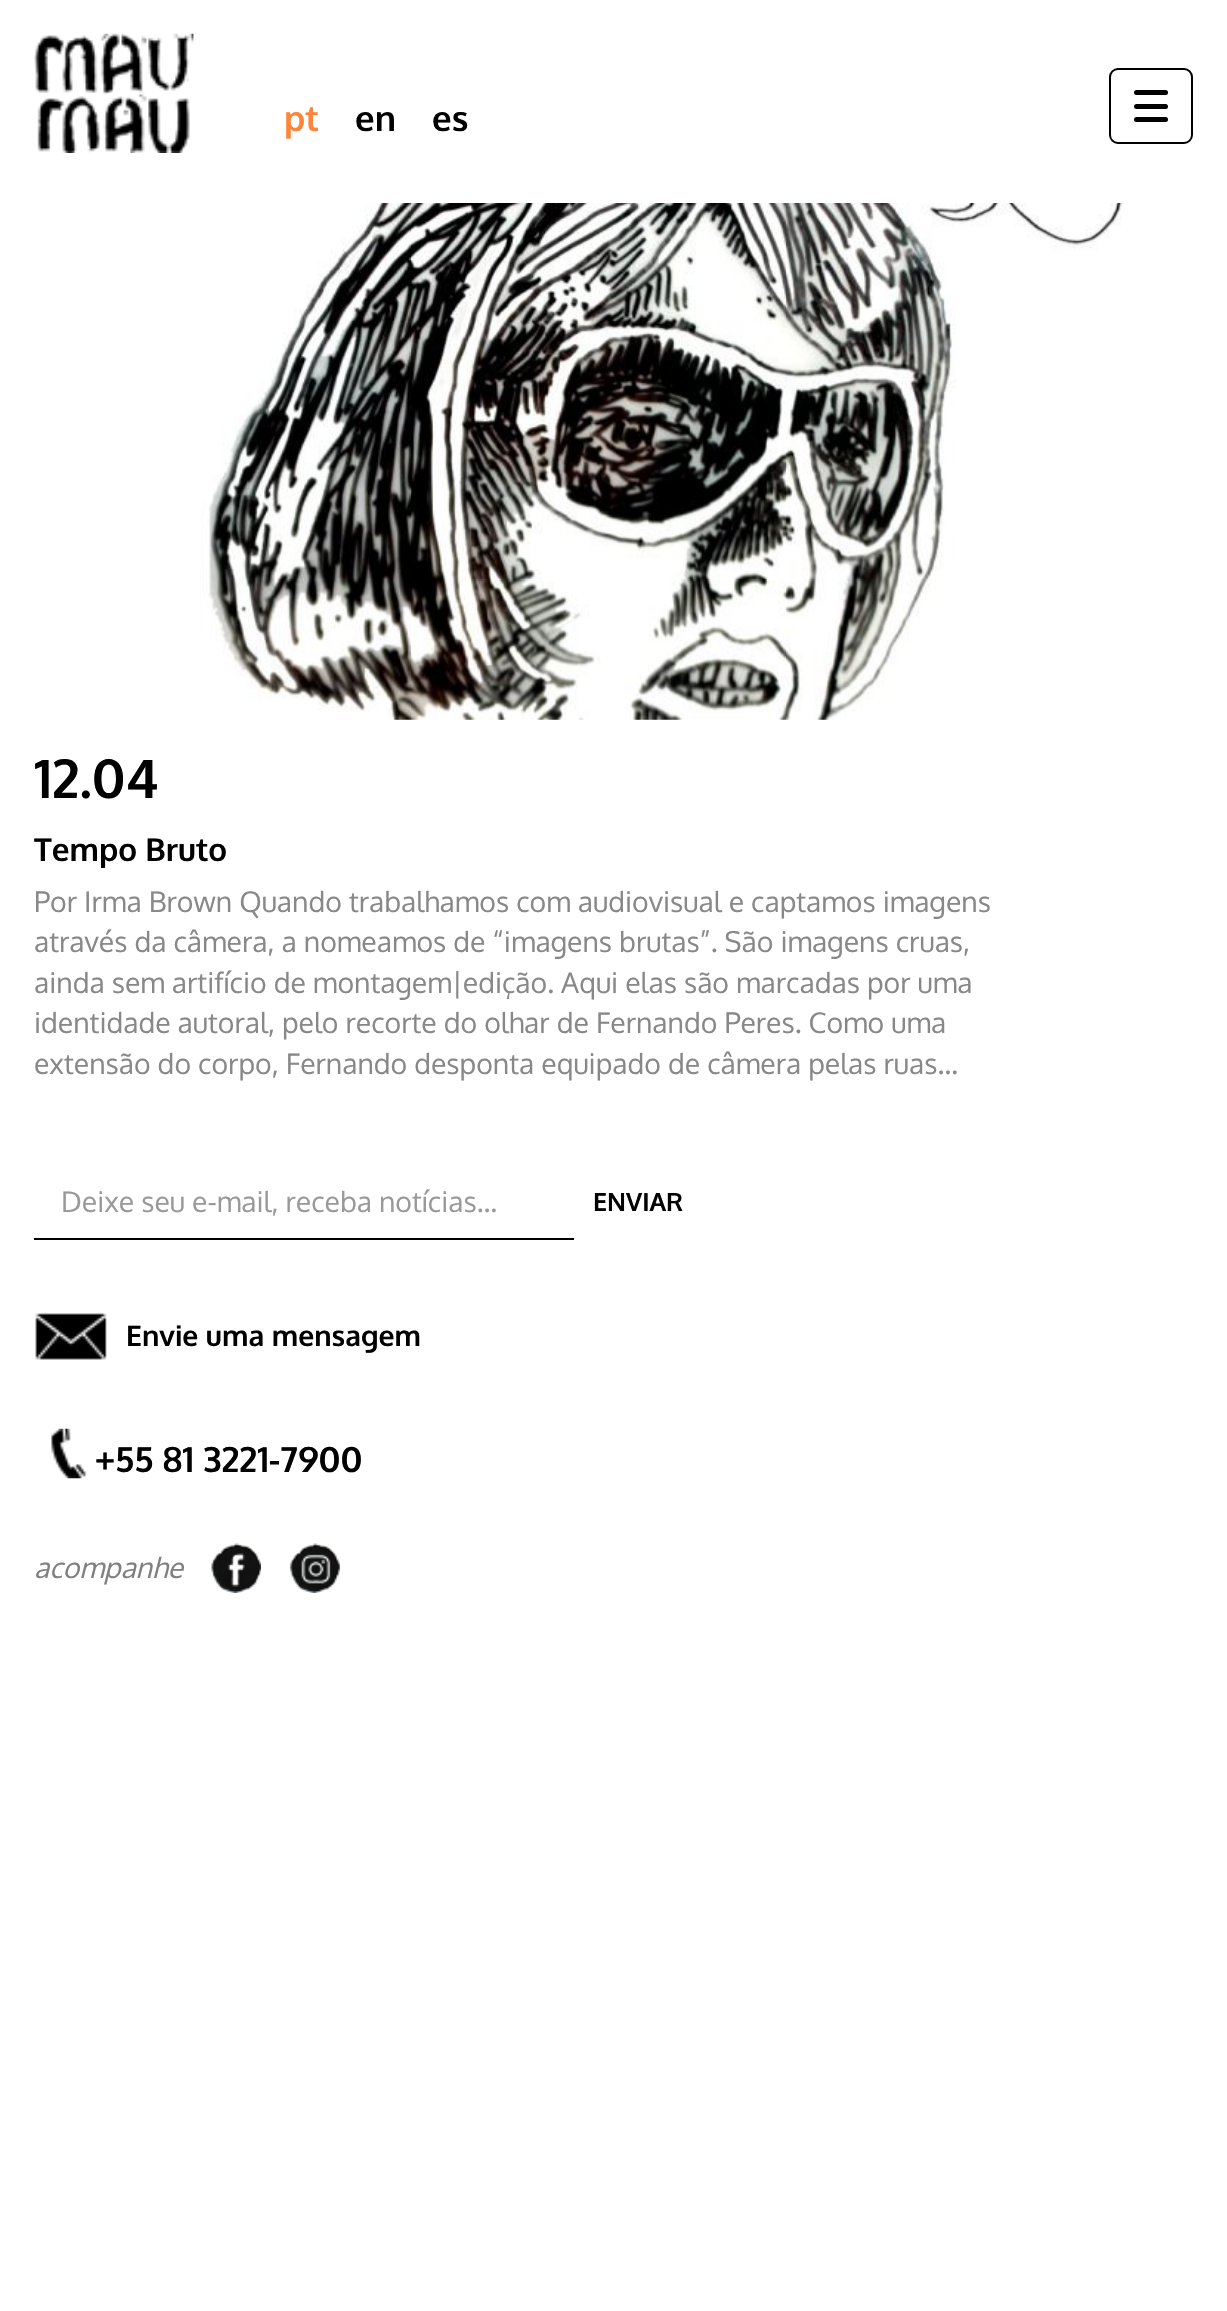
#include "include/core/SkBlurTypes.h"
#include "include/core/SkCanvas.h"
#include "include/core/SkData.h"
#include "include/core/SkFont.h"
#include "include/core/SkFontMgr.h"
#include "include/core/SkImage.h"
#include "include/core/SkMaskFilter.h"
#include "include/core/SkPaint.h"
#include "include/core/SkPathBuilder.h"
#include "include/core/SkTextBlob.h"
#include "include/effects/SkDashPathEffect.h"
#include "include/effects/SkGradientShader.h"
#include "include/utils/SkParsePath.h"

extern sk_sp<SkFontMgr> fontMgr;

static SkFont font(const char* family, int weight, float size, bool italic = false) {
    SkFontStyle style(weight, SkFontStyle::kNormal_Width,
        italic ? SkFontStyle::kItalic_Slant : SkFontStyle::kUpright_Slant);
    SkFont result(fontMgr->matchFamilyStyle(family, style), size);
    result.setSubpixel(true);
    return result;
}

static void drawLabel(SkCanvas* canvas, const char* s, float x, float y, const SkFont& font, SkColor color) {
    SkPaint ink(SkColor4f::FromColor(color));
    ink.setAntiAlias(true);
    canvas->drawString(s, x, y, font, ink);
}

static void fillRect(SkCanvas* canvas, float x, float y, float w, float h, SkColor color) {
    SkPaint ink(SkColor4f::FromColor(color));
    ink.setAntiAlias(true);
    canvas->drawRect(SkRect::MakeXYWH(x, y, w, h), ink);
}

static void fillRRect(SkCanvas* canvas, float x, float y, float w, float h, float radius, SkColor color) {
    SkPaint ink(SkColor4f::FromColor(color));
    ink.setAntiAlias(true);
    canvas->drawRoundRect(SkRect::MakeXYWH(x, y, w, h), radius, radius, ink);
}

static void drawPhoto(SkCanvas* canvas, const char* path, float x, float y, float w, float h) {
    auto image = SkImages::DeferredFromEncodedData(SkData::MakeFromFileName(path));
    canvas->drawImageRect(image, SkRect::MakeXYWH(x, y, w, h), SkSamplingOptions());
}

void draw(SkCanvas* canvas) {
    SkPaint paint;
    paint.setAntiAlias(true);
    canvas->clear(0xFFFFFFFF);
    drawPhoto(canvas, "assets/img1.png", 33, 33, 161, 120);
    SkFont font1 = font("Oxygen", 700, 34.75f);
    drawLabel(canvas, "pt", 284, 131, font1, 0xFFFE8439);
    drawLabel(canvas, "en", 355, 131, font1, 0xFF000000);
    drawLabel(canvas, "es", 432, 131, font1, 0xFF000000);
    paint.setStroke(true);
    paint.setStrokeWidth(2);
    paint.setColor(0xFF000000);
    canvas->drawRoundRect(SkRect::MakeXYWH(1110, 69, 82, 74), 8, 8, paint);
    fillRRect(canvas, 1134, 90, 34, 5, 2.5f, 0xFF000000);
    fillRRect(canvas, 1134, 104, 34, 5, 2.5f, 0xFF000000);
    fillRRect(canvas, 1134, 117, 34, 5, 2.5f, 0xFF000000);
    drawPhoto(canvas, "assets/img2.png", 200, 203, 922, 517);
    SkFont font2 = font("Oxygen", 700, 53.5f);
    drawLabel(canvas, "12.04", 34, 798, font2, 0xFF000000);
    SkFont font3 = font("Oxygen", 700, 31.5f);
    drawLabel(canvas, "Tempo Bruto", 34, 861, font3, 0xFF000000);
    SkFont font4 = font("Oxygen", 400, 28.35f);
    drawLabel(canvas, "Por Irma Brown Quando trabalhamos com audiovisual e captamos imagens", 34, 912, font4, 0xFF888888);
    drawLabel(canvas, "através da câmera, a nomeamos de “imagens brutas”. São imagens cruas,", 34, 952, font4, 0xFF888888);
    drawLabel(canvas, "ainda sem artifício de montagem|edição. Aqui elas são marcadas por uma", 34, 993, font4, 0xFF888888);
    drawLabel(canvas, "identidade autoral, pelo recorte do olhar de Fernando Peres. Como uma", 34, 1033, font4, 0xFF888888);
    drawLabel(canvas, "extensão do corpo, Fernando desponta equipado de câmera pelas ruas…", 34, 1074, font4, 0xFF888888);
    fillRect(canvas, 34, 1238, 540, 2, 0xFF000000);
    drawLabel(canvas, "Deixe seu e-mail, receba notícias...", 61, 1212, font4, 0xFF999999);
    SkFont font5 = font("Oxygen", 700, 25);
    drawLabel(canvas, "ENVIAR", 593, 1211, font5, 0xFF000000);
    drawPhoto(canvas, "assets/img3.png", 35, 1313, 72, 47);
    SkFont font6 = font("Oxygen", 700, 28.35f);
    drawLabel(canvas, "Envie uma mensagem", 126, 1346, font6, 0xFF000000);
    drawPhoto(canvas, "assets/img4.png", 51, 1428, 36, 51);
    drawLabel(canvas, "+55 81 3221-7900", 95, 1472, font1, 0xFF000000);
    SkFont font7 = font("Oxygen", 400, 28.35f, true);
    drawLabel(canvas, "acompanhe", 34, 1578, font7, 0xFF808080);
    drawPhoto(canvas, "assets/img5.png", 211, 1543, 50, 50);
    drawPhoto(canvas, "assets/img6.png", 290, 1543, 50, 50);
}
